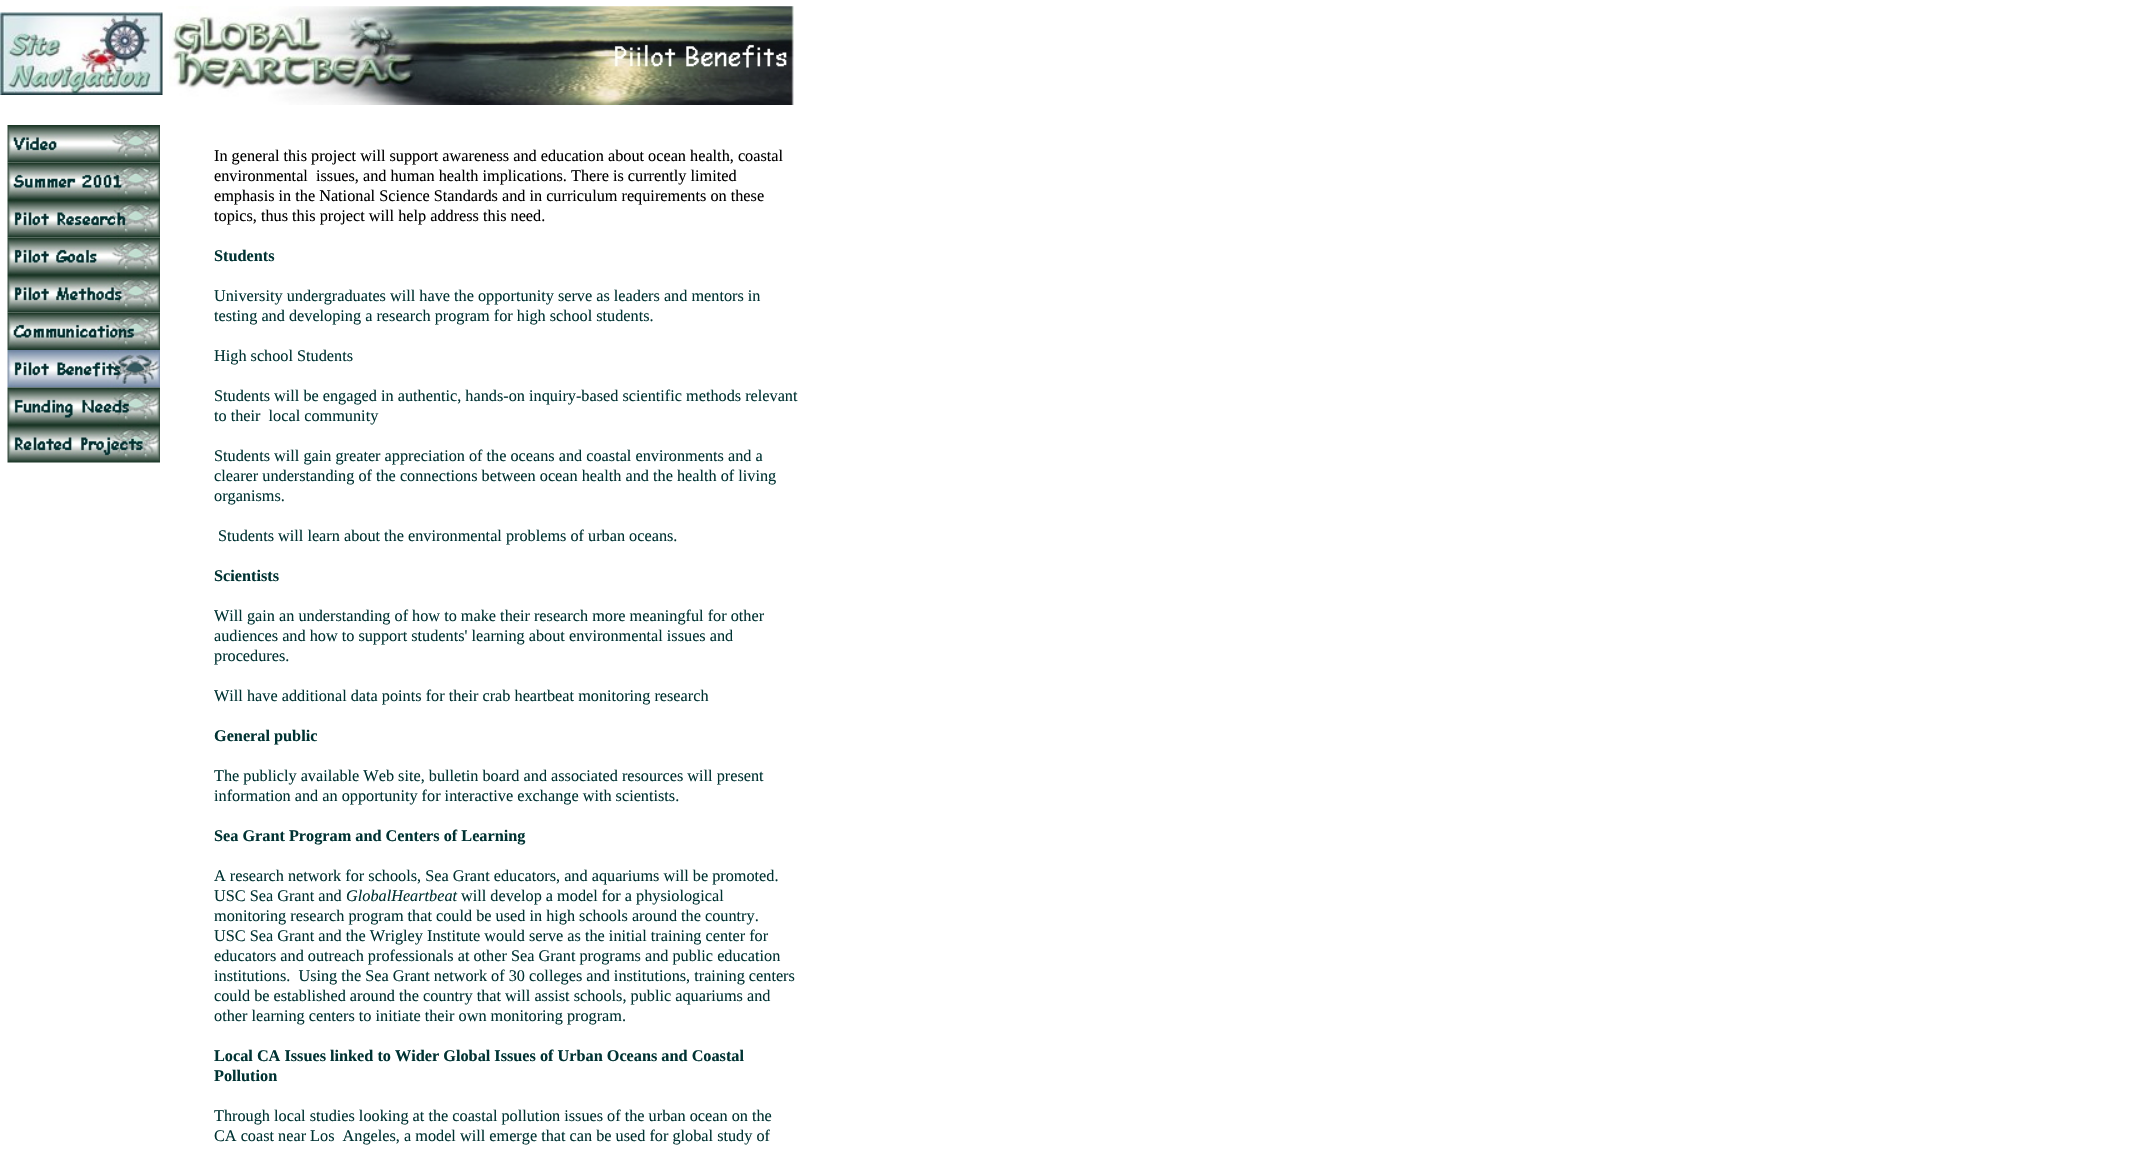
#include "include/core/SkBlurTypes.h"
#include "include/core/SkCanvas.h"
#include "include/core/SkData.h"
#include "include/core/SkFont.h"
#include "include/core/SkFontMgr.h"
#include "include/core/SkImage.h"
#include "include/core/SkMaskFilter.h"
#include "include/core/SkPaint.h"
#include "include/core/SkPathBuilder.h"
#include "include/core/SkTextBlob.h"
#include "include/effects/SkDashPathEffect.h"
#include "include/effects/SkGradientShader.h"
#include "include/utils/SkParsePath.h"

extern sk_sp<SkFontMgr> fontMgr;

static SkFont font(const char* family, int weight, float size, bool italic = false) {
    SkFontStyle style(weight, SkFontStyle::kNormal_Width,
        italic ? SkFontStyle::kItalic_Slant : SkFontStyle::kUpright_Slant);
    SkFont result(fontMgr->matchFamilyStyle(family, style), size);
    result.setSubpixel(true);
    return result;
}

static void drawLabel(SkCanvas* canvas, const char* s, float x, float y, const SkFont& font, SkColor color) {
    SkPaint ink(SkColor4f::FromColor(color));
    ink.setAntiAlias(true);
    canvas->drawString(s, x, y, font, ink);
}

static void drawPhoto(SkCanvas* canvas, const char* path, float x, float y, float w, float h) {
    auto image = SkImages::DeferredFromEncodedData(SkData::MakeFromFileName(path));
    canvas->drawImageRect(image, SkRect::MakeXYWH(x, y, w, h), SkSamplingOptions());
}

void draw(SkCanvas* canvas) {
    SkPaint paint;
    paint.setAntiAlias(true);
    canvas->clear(0xFFFFFFFF);
    drawPhoto(canvas, "assets/img1.png", 0, 12, 163, 83);
    drawPhoto(canvas, "assets/img2.png", 7, 125, 153, 38);
    drawPhoto(canvas, "assets/img3.png", 7, 162, 153, 38);
    drawPhoto(canvas, "assets/img4.png", 7, 200, 153, 38);
    drawPhoto(canvas, "assets/img5.png", 7, 237, 153, 38);
    drawPhoto(canvas, "assets/img6.png", 7, 275, 153, 38);
    drawPhoto(canvas, "assets/img7.png", 7, 312, 153, 38);
    drawPhoto(canvas, "assets/img8.png", 7, 350, 153, 38);
    drawPhoto(canvas, "assets/img9.png", 7, 387, 153, 38);
    drawPhoto(canvas, "assets/img10.png", 7, 425, 153, 38);
    drawPhoto(canvas, "assets/img11.png", 169, 6, 625, 99);
    SkFont font1 = font("Liberation Serif", 400, 16.25f);
    drawLabel(canvas, "In general this project will support awareness and education about ocean health, coastal", 214, 161, font1, 0xFF000000);
    drawLabel(canvas, "environmental  issues, and human health implications. There is currently limited", 214, 181, font1, 0xFF000000);
    drawLabel(canvas, "emphasis in the National Science Standards and in curriculum requirements on these", 214, 201, font1, 0xFF000000);
    drawLabel(canvas, "topics, thus this project will help address this need.", 214, 221, font1, 0xFF000000);
    SkFont font2 = font("Liberation Serif", 700, 16.25f);
    drawLabel(canvas, "Students", 214, 261, font2, 0xFF003333);
    drawLabel(canvas, "University undergraduates will have the opportunity serve as leaders and mentors in", 214, 301, font1, 0xFF003333);
    drawLabel(canvas, "testing and developing a research program for high school students.", 214, 321, font1, 0xFF003333);
    drawLabel(canvas, "High school Students", 214, 361, font1, 0xFF003333);
    drawLabel(canvas, "Students will be engaged in authentic, hands-on inquiry-based scientific methods relevant", 214, 401, font1, 0xFF003333);
    drawLabel(canvas, "to their  local community", 214, 421, font1, 0xFF003333);
    drawLabel(canvas, "Students will gain greater appreciation of the oceans and coastal environments and a", 214, 461, font1, 0xFF003333);
    drawLabel(canvas, "clearer understanding of the connections between ocean health and the health of living", 214, 481, font1, 0xFF003333);
    drawLabel(canvas, "organisms.", 214, 501, font1, 0xFF003333);
    drawLabel(canvas, "Students will learn about the environmental problems of urban oceans.", 218, 541, font1, 0xFF003333);
    drawLabel(canvas, "Scientists", 214, 581, font2, 0xFF003333);
    drawLabel(canvas, "Will gain an understanding of how to make their research more meaningful for other", 214, 621, font1, 0xFF003333);
    drawLabel(canvas, "audiences and how to support students' learning about environmental issues and", 214, 641, font1, 0xFF003333);
    drawLabel(canvas, "procedures.", 214, 661, font1, 0xFF003333);
    drawLabel(canvas, "Will have additional data points for their crab heartbeat monitoring research", 214, 701, font1, 0xFF003333);
    drawLabel(canvas, "General public", 214, 741, font2, 0xFF003333);
    drawLabel(canvas, "The publicly available Web site, bulletin board and associated resources will present", 214, 781, font1, 0xFF003333);
    drawLabel(canvas, "information and an opportunity for interactive exchange with scientists.", 214, 801, font1, 0xFF003333);
    drawLabel(canvas, "Sea Grant Program and Centers of Learning", 214, 841, font2, 0xFF003333);
    drawLabel(canvas, "A research network for schools, Sea Grant educators, and aquariums will be promoted.", 214, 881, font1, 0xFF003333);
    drawLabel(canvas, "USC Sea Grant and", 214, 901, font1, 0xFF003333);
    SkFont font3 = font("Liberation Serif", 400, 16.25f, true);
    drawLabel(canvas, "GlobalHeartbeat", 346, 901, font3, 0xFF003333);
    drawLabel(canvas, "will develop a model for a physiological", 461, 901, font1, 0xFF003333);
    drawLabel(canvas, "monitoring research program that could be used in high schools around the country.", 214, 921, font1, 0xFF003333);
    drawLabel(canvas, "USC Sea Grant and the Wrigley Institute would serve as the initial training center for", 214, 941, font1, 0xFF003333);
    drawLabel(canvas, "educators and outreach professionals at other Sea Grant programs and public education", 214, 961, font1, 0xFF003333);
    drawLabel(canvas, "institutions.  Using the Sea Grant network of 30 colleges and institutions, training centers", 214, 981, font1, 0xFF003333);
    drawLabel(canvas, "could be established around the country that will assist schools, public aquariums and", 214, 1001, font1, 0xFF003333);
    drawLabel(canvas, "other learning centers to initiate their own monitoring program.", 214, 1021, font1, 0xFF003333);
    drawLabel(canvas, "Local CA Issues linked to Wider Global Issues of Urban Oceans and Coastal", 214, 1061, font2, 0xFF003333);
    drawLabel(canvas, "Pollution", 214, 1081, font2, 0xFF003333);
    drawLabel(canvas, "Through local studies looking at the coastal pollution issues of the urban ocean on the", 214, 1121, font1, 0xFF003333);
    drawLabel(canvas, "CA coast near Los  Angeles, a model will emerge that can be used for global study of", 214, 1141, font1, 0xFF003333);
}
